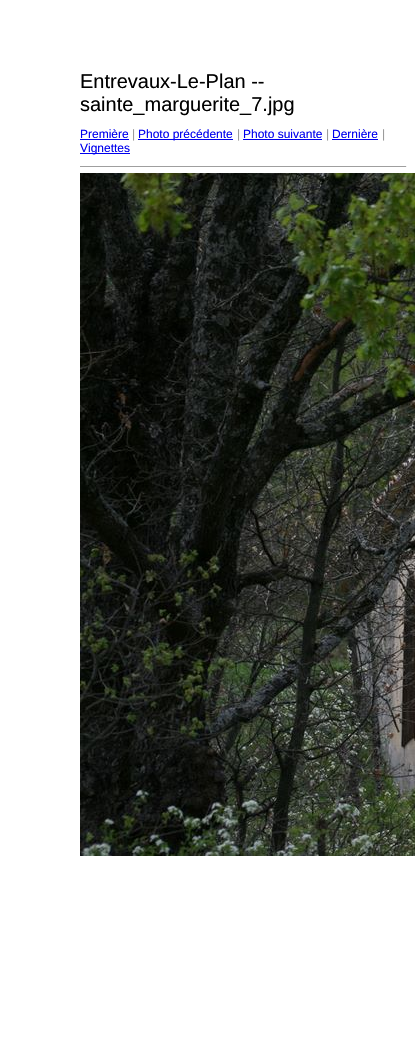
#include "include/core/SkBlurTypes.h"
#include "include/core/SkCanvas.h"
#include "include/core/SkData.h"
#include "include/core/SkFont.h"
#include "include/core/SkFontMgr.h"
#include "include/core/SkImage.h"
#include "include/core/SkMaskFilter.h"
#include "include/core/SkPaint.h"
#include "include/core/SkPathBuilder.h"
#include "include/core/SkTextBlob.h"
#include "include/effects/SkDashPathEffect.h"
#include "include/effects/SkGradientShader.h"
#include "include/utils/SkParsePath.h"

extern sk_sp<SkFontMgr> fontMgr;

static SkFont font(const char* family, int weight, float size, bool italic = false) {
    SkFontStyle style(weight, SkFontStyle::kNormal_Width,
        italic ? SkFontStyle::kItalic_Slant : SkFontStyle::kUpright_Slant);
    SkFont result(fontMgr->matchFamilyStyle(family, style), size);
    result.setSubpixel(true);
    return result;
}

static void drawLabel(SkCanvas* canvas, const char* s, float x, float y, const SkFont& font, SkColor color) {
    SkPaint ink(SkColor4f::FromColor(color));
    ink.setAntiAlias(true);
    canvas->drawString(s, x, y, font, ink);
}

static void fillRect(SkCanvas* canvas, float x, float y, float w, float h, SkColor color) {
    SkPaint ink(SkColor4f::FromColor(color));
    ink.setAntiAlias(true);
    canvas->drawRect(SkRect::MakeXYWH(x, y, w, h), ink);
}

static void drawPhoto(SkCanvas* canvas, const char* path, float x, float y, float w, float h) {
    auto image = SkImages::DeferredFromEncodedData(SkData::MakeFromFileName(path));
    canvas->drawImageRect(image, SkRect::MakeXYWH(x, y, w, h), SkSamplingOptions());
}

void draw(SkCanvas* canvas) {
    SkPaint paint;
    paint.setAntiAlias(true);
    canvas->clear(0xFFFFFFFF);
    SkFont font1 = font("Liberation Sans", 400, 20);
    drawLabel(canvas, "Entrevaux-Le-Plan --", 80, 88, font1, 0xFF000000);
    drawLabel(canvas, "sainte_marguerite_7.jpg", 80, 111, font1, 0xFF000000);
    SkFont font2 = font("Liberation Sans", 400, 12);
    drawLabel(canvas, "Première", 80, 138, font2, 0xFF0000EE);
    fillRect(canvas, 80, 139, 49, 1, 0xFF0000EE);
    drawLabel(canvas, "|", 132, 138, font2, 0xFF979797);
    fillRect(canvas, 138, 139, 95, 1, 0xFF0000EE);
    drawLabel(canvas, "Photo précédente", 138, 138, font2, 0xFF0000EE);
    drawLabel(canvas, "|", 237, 138, font2, 0xFF979797);
    drawLabel(canvas, "Photo suivante", 243, 138, font2, 0xFF0000EE);
    fillRect(canvas, 243, 139, 79, 1, 0xFF0000EE);
    drawLabel(canvas, "|", 326, 138, font2, 0xFF979797);
    drawLabel(canvas, "Dernière", 332, 138, font2, 0xFF0000EE);
    fillRect(canvas, 332, 139, 46, 1, 0xFF0000EE);
    drawLabel(canvas, "|", 382, 138, font2, 0xFF979797);
    fillRect(canvas, 80, 153, 50, 1, 0xFF0000EE);
    drawLabel(canvas, "Vignettes", 80, 152, font2, 0xFF0000EE);
    fillRect(canvas, 80, 166, 327, 1, 0xFF9F9F9F);
    fillRect(canvas, 406, 166, 1, 1, 0xFFEEEEEE);
    drawPhoto(canvas, "assets/img1.png", 80, 173, 335, 683);
}
